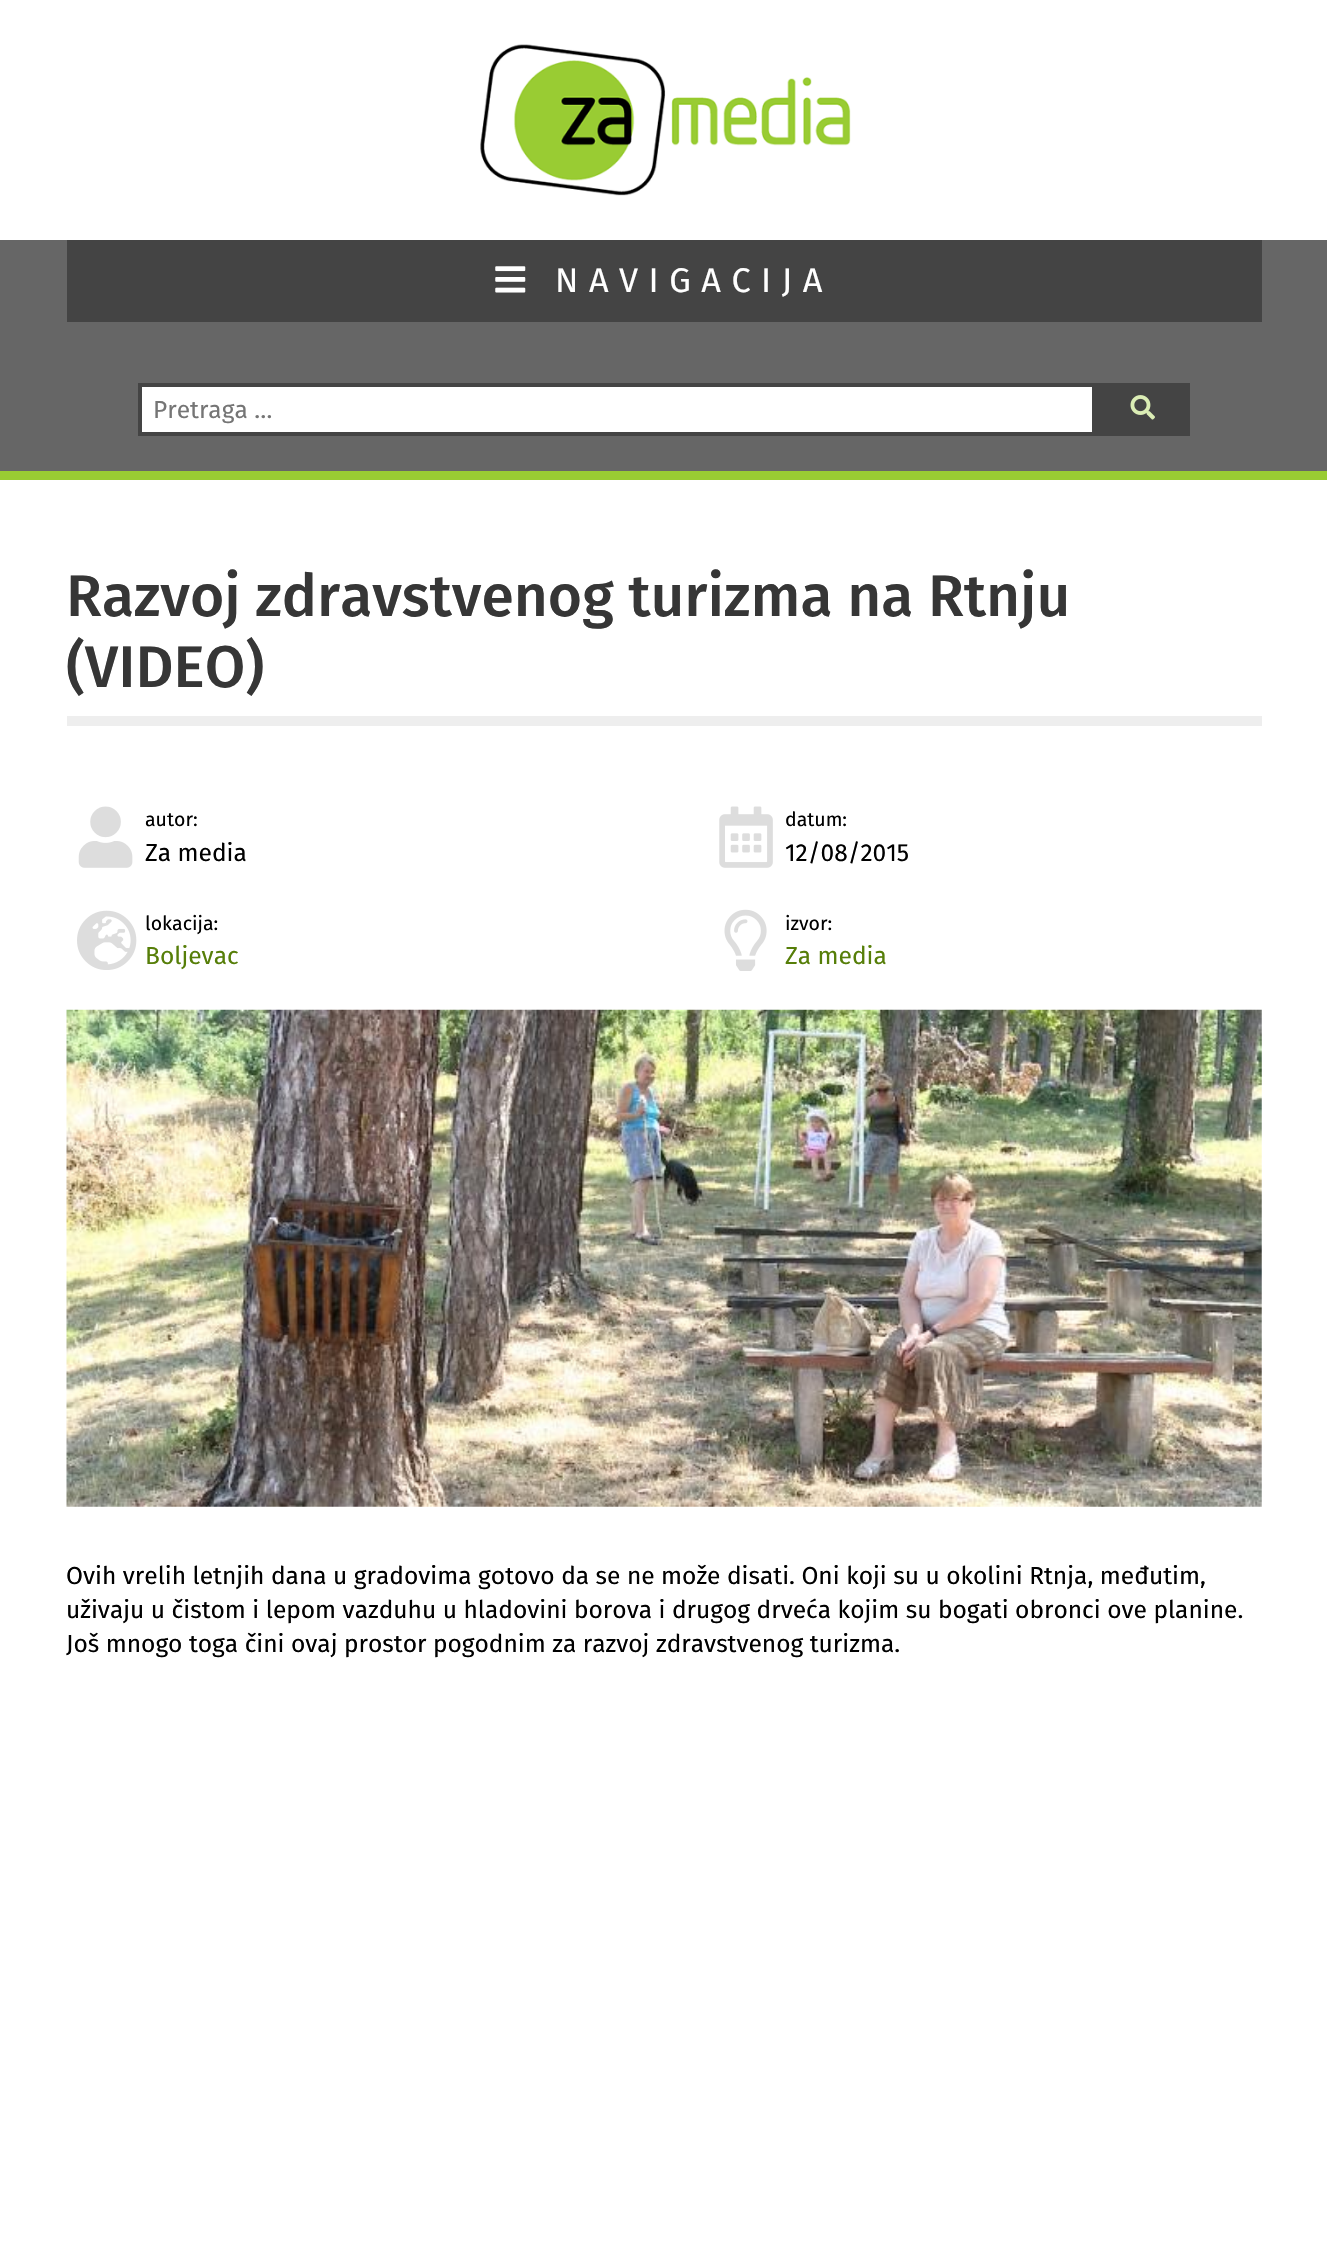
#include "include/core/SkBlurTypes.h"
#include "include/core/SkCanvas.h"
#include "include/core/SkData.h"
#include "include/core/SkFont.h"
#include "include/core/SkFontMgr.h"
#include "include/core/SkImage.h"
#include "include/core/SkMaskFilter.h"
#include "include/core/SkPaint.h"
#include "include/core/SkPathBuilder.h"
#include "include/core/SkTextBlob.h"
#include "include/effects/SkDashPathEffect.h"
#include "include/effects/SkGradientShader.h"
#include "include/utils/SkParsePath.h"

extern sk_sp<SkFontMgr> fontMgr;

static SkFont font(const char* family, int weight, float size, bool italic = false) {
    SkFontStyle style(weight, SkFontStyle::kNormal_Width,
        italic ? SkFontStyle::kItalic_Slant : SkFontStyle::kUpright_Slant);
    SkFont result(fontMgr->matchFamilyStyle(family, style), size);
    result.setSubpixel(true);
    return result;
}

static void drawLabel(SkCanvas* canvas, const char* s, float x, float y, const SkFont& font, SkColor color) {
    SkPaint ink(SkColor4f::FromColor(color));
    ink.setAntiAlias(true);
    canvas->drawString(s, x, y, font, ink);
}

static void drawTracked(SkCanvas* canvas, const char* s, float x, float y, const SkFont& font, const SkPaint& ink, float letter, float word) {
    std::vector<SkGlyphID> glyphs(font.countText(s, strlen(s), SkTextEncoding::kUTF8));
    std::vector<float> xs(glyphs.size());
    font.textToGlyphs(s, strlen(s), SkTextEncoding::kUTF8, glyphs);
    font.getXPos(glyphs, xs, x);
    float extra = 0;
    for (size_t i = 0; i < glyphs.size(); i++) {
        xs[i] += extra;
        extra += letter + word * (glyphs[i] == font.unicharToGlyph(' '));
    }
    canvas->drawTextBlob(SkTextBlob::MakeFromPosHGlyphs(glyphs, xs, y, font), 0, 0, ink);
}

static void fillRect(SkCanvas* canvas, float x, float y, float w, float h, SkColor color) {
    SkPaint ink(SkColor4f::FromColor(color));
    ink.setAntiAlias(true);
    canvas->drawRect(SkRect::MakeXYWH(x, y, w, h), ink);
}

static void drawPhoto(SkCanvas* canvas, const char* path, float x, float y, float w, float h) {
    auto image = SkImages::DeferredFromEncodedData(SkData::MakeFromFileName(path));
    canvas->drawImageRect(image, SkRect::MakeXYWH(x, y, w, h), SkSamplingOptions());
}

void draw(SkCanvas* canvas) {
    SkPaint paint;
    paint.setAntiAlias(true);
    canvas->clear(0xFFFFFFFF);
    drawPhoto(canvas, "assets/img1.png", 480, 44, 371, 152);
    fillRect(canvas, 0, 240, 1327, 231, 0xFF666666);
    fillRect(canvas, 0, 471, 1327, 9, 0xFF99CC33);
    fillRect(canvas, 67, 240, 1195, 82, 0xFF444444);
    drawPhoto(canvas, "assets/img2.png", 495, 266, 31, 27);
    SkFont font1 = font("Fira Sans", 400, 34.25f);
    paint.setColor(0xFFFFFFFF);
    drawTracked(canvas, "NAVIGACIJA", 555, 292, font1, paint, 10.5f, 0);
    canvas->drawRect(SkRect::MakeXYWH(140, 385, 954, 49), paint);
    paint.setStroke(true);
    paint.setStrokeWidth(4);
    paint.setColor(0xFF444444);
    canvas->drawRect(SkRect::MakeXYWH(140, 385, 954, 49), paint);
    SkFont font2 = font("Fira Sans", 400, 24.5f);
    drawLabel(canvas, "Pretraga …", 153, 418, font2, 0xFF757575);
    fillRect(canvas, 1096, 383, 94, 53, 0xFF444444);
    drawPhoto(canvas, "assets/img3.png", 1130, 395, 25, 25);
    fillRect(canvas, 67, 716, 1195, 10, 0xFFEEEEEE);
    SkFont font3 = font("Fira Sans", 500, 58.75f);
    drawLabel(canvas, "Razvoj zdravstvenog turizma na Rtnju", 66, 616, font3, 0xFF363636);
    drawLabel(canvas, "(VIDEO)", 66, 687, font3, 0xFF363636);
    drawPhoto(canvas, "assets/img4.png", 78, 806, 55, 62);
    SkFont font4 = font("Fira Sans", 400, 19.5f);
    drawLabel(canvas, "autor:", 145, 826, font4, 0xFF000000);
    drawLabel(canvas, "Za media", 145, 861, font2, 0xFF000000);
    drawPhoto(canvas, "assets/img5.png", 719, 806, 54, 62);
    drawLabel(canvas, "datum:", 785, 826, font4, 0xFF000000);
    drawLabel(canvas, "12/08/2015", 785, 861, font2, 0xFF000000);
    drawPhoto(canvas, "assets/img6.png", 77, 910, 60, 60);
    drawLabel(canvas, "lokacija:", 145, 930, font4, 0xFF000000);
    drawLabel(canvas, "Boljevac", 145, 964, font2, 0xFF567E08);
    drawPhoto(canvas, "assets/img7.png", 724, 909, 43, 62);
    drawLabel(canvas, "izvor:", 785, 930, font4, 0xFF000000);
    drawLabel(canvas, "Za media", 785, 964, font2, 0xFF567E08);
    drawPhoto(canvas, "assets/img8.png", 66, 1009, 1196, 498);
    drawLabel(canvas, "Ovih vrelih letnjih dana u gradovima gotovo da se ne može disati. Oni koji su u okolini Rtnja, međutim,", 66, 1584, font2, 0xFF000000);
    drawLabel(canvas, "uživaju u čistom i lepom vazduhu u hladovini borova i drugog drveća kojim su bogati obronci ove planine.", 66, 1618, font2, 0xFF000000);
    drawLabel(canvas, "Još mnogo toga čini ovaj prostor pogodnim za razvoj zdravstvenog turizma.", 66, 1652, font2, 0xFF000000);
}
